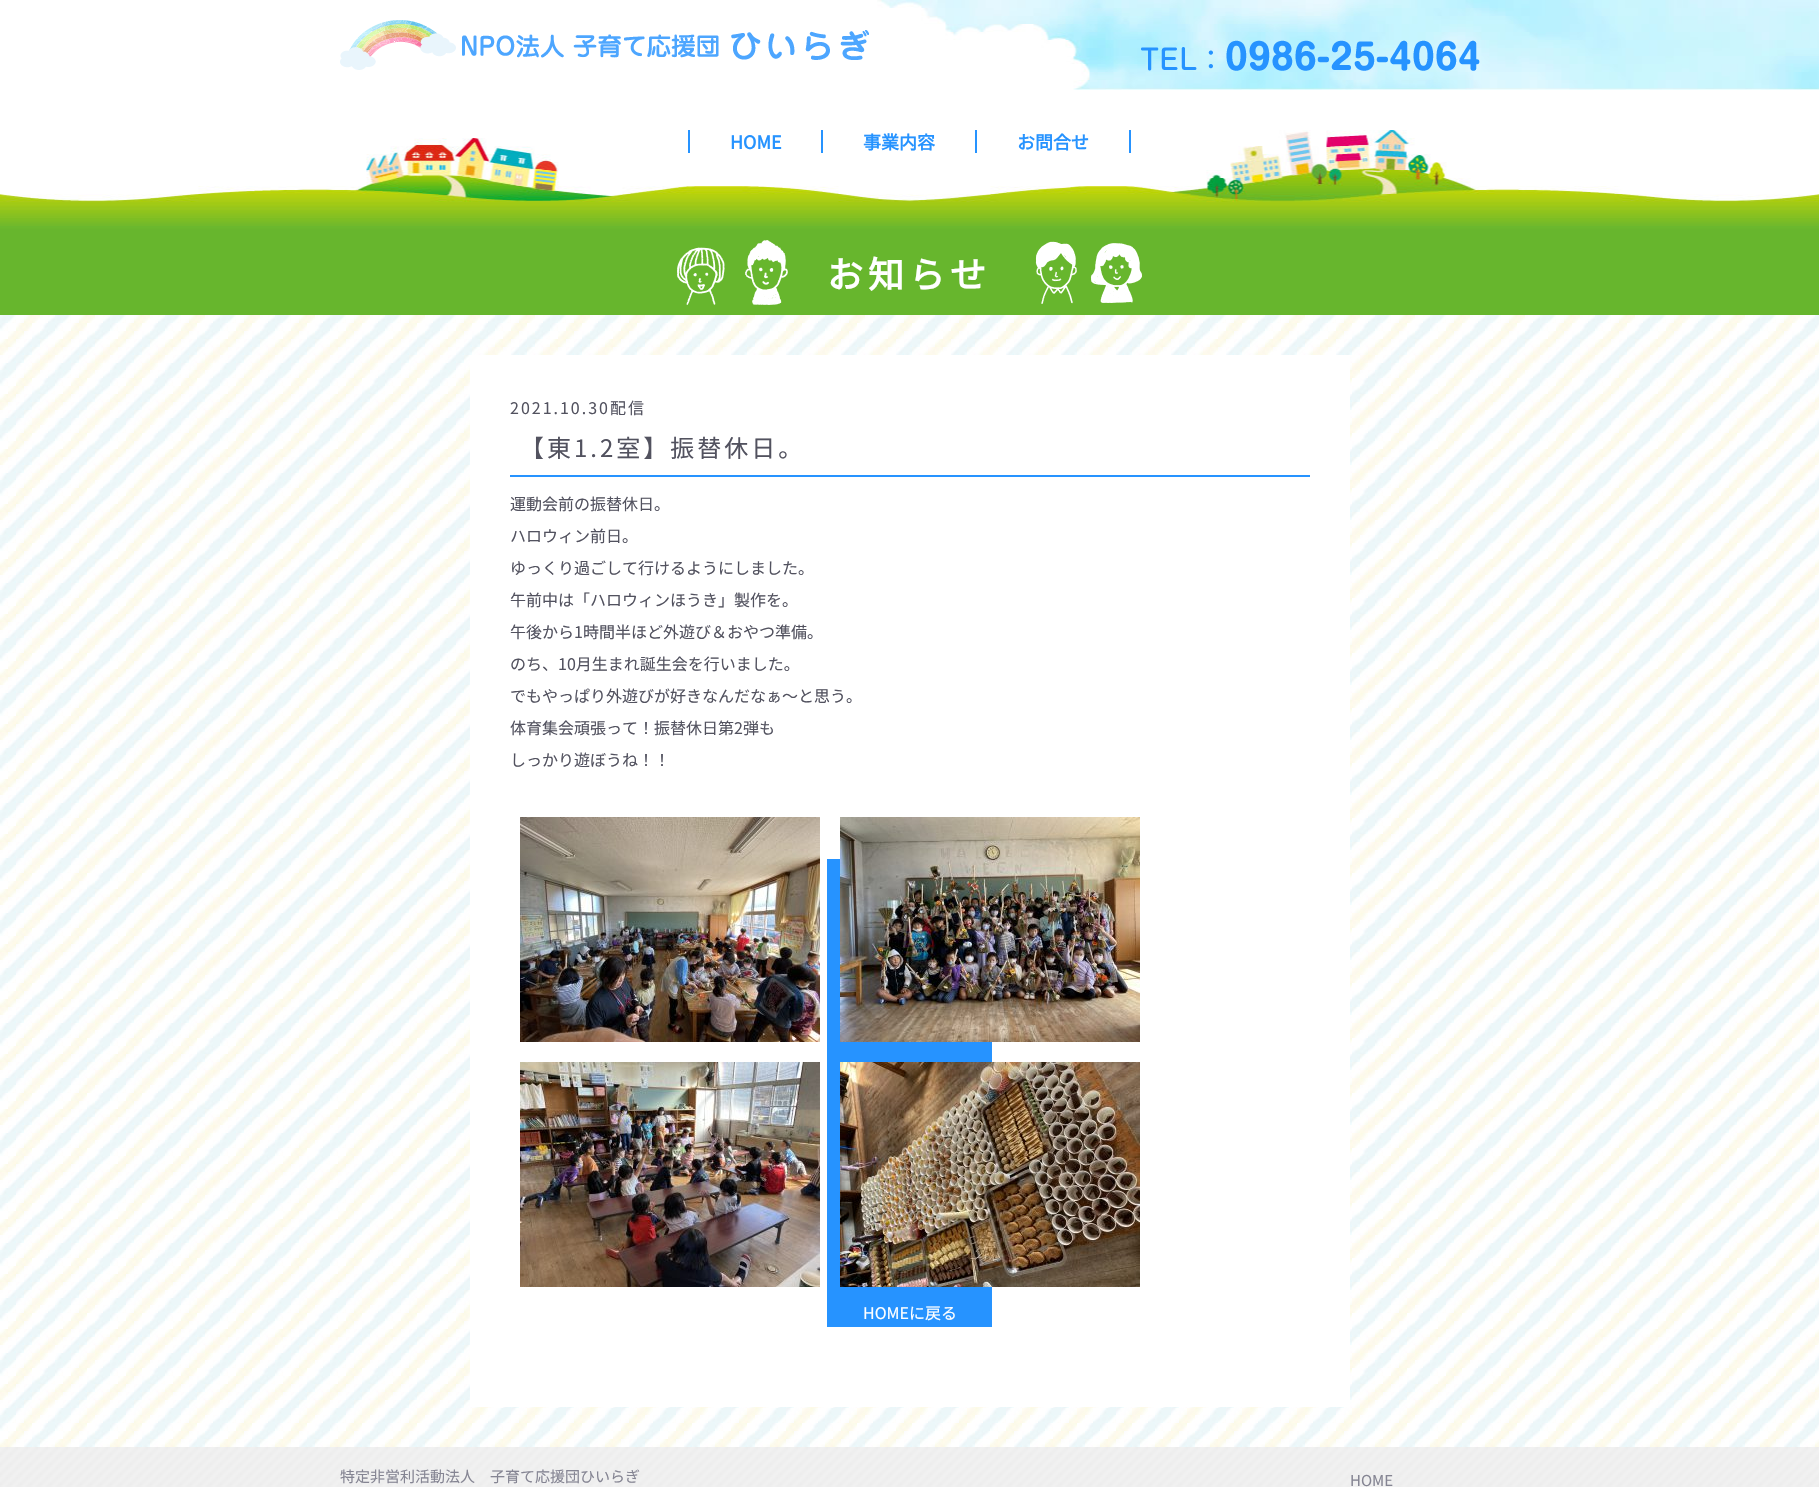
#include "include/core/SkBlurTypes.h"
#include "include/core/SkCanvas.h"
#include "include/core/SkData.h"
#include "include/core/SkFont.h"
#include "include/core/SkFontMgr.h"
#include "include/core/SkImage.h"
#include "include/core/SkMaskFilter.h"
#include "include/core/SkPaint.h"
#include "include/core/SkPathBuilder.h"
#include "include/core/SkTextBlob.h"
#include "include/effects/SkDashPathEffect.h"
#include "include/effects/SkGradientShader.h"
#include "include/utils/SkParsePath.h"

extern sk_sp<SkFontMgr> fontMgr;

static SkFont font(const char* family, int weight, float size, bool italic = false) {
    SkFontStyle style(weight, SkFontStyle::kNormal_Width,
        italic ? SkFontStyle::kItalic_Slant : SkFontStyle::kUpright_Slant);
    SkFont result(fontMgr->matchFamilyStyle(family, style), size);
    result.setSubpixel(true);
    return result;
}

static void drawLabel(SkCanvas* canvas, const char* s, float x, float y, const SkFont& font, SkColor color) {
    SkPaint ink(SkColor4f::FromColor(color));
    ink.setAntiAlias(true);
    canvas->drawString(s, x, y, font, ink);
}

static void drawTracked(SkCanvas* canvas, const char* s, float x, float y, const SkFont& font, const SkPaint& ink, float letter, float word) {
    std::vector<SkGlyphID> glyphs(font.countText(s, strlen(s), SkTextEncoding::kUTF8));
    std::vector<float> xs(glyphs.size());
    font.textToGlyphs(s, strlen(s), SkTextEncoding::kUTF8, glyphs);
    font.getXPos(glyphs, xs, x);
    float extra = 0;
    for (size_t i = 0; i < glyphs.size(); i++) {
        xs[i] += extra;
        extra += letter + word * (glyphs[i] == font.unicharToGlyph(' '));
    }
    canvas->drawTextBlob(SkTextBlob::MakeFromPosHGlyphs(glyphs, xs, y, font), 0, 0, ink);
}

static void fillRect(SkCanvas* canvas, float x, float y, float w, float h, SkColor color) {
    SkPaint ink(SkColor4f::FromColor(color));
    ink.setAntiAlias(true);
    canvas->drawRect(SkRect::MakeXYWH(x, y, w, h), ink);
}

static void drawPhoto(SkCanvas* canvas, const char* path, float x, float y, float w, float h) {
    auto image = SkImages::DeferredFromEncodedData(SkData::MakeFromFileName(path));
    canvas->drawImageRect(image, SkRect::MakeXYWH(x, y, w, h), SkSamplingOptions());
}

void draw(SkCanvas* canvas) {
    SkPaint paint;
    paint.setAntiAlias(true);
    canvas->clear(0xFFFFFFFF);
    drawPhoto(canvas, "assets/img1.png", 877, 0, 942, 90);
    drawPhoto(canvas, "assets/img2.png", 340, 20, 529, 50);
    drawPhoto(canvas, "assets/img3.png", 1141, 40, 339, 31);
    drawPhoto(canvas, "assets/img4.png", 0, 130, 1819, 100);
    fillRect(canvas, 688, 130, 2, 23, 0xFF2693FF);
    SkFont font1 = font("Noto Sans JP", 700, 18);
    drawLabel(canvas, "HOME", 730, 149, font1, 0xFF2693FF);
    fillRect(canvas, 821, 130, 2, 23, 0xFF2693FF);
    drawLabel(canvas, "事業内容", 863, 149, font1, 0xFF2693FF);
    fillRect(canvas, 1129, 130, 2, 23, 0xFF2693FF);
    fillRect(canvas, 975, 130, 2, 23, 0xFF2693FF);
    drawLabel(canvas, "お問合せ", 1017, 149, font1, 0xFF2693FF);
    fillRect(canvas, 0, 230, 1819, 85, 0xFF67B62D);
    drawPhoto(canvas, "assets/img5.png", 677, 240, 465, 65);
    SkFont font2 = font("Noto Sans JP", 700, 36);
    paint.setColor(0xFFFFFFFF);
    drawTracked(canvas, "お知らせ", 827, 288, font2, paint, 5, 0);
    drawPhoto(canvas, "assets/img6.png", 0, 315, 1819, 1132);
    fillRect(canvas, 470, 355, 880, 1052, 0xFFFFFFFF);
    SkFont font3 = font("Noto Sans JP", 100, 16);
    paint.setColor(0xFF52525F);
    drawTracked(canvas, "2021.10.30配信", 510, 414, font3, paint, 2, 0);
    fillRect(canvas, 510, 475, 800, 2, 0xFF2693FF);
    SkFont font4 = font("Noto Sans JP", 100, 24);
    drawTracked(canvas, "【東1.2室】振替休日。", 520, 457, font4, paint, 3, 0);
    drawLabel(canvas, "運動会前の振替休日。", 510, 510, font3, 0xFF52525F);
    drawLabel(canvas, "ハロウィン前日。", 510, 542, font3, 0xFF52525F);
    drawLabel(canvas, "ゆっくり過ごして行けるようにしました。", 510, 574, font3, 0xFF52525F);
    drawLabel(canvas, "午前中は「ハロウィンほうき」製作を。", 510, 606, font3, 0xFF52525F);
    drawLabel(canvas, "午後から1時間半ほど外遊び＆おやつ準備。", 510, 638, font3, 0xFF52525F);
    drawLabel(canvas, "のち、10月生まれ誕生会を行いました。", 510, 670, font3, 0xFF52525F);
    drawLabel(canvas, "でもやっぱり外遊びが好きなんだなぁ～と思う。", 510, 702, font3, 0xFF52525F);
    drawLabel(canvas, "体育集会頑張って！振替休日第2弾も", 510, 734, font3, 0xFF52525F);
    drawLabel(canvas, "しっかり遊ぼうね！！", 510, 766, font3, 0xFF52525F);
    drawPhoto(canvas, "assets/img7.png", 520, 817, 300, 225);
    fillRect(canvas, 827, 859, 165, 468, 0xFF2693FF);
    drawPhoto(canvas, "assets/img8.png", 840, 817, 300, 225);
    drawPhoto(canvas, "assets/img9.png", 520, 1062, 300, 225);
    drawPhoto(canvas, "assets/img10.png", 840, 1062, 300, 225);
    drawLabel(canvas, "HOMEに戻る", 863, 1319, font3, 0xFFFFFFFF);
    drawPhoto(canvas, "assets/img11.png", 0, 1447, 1819, 40);
    SkFont font5 = font("Noto Sans JP", 100, 15);
    drawLabel(canvas, "特定非営利活動法人　子育て応援団ひいらぎ", 340, 1482, font5, 0xFF858593);
    drawLabel(canvas, "HOME", 1350, 1486, font5, 0xFF858593);
}
